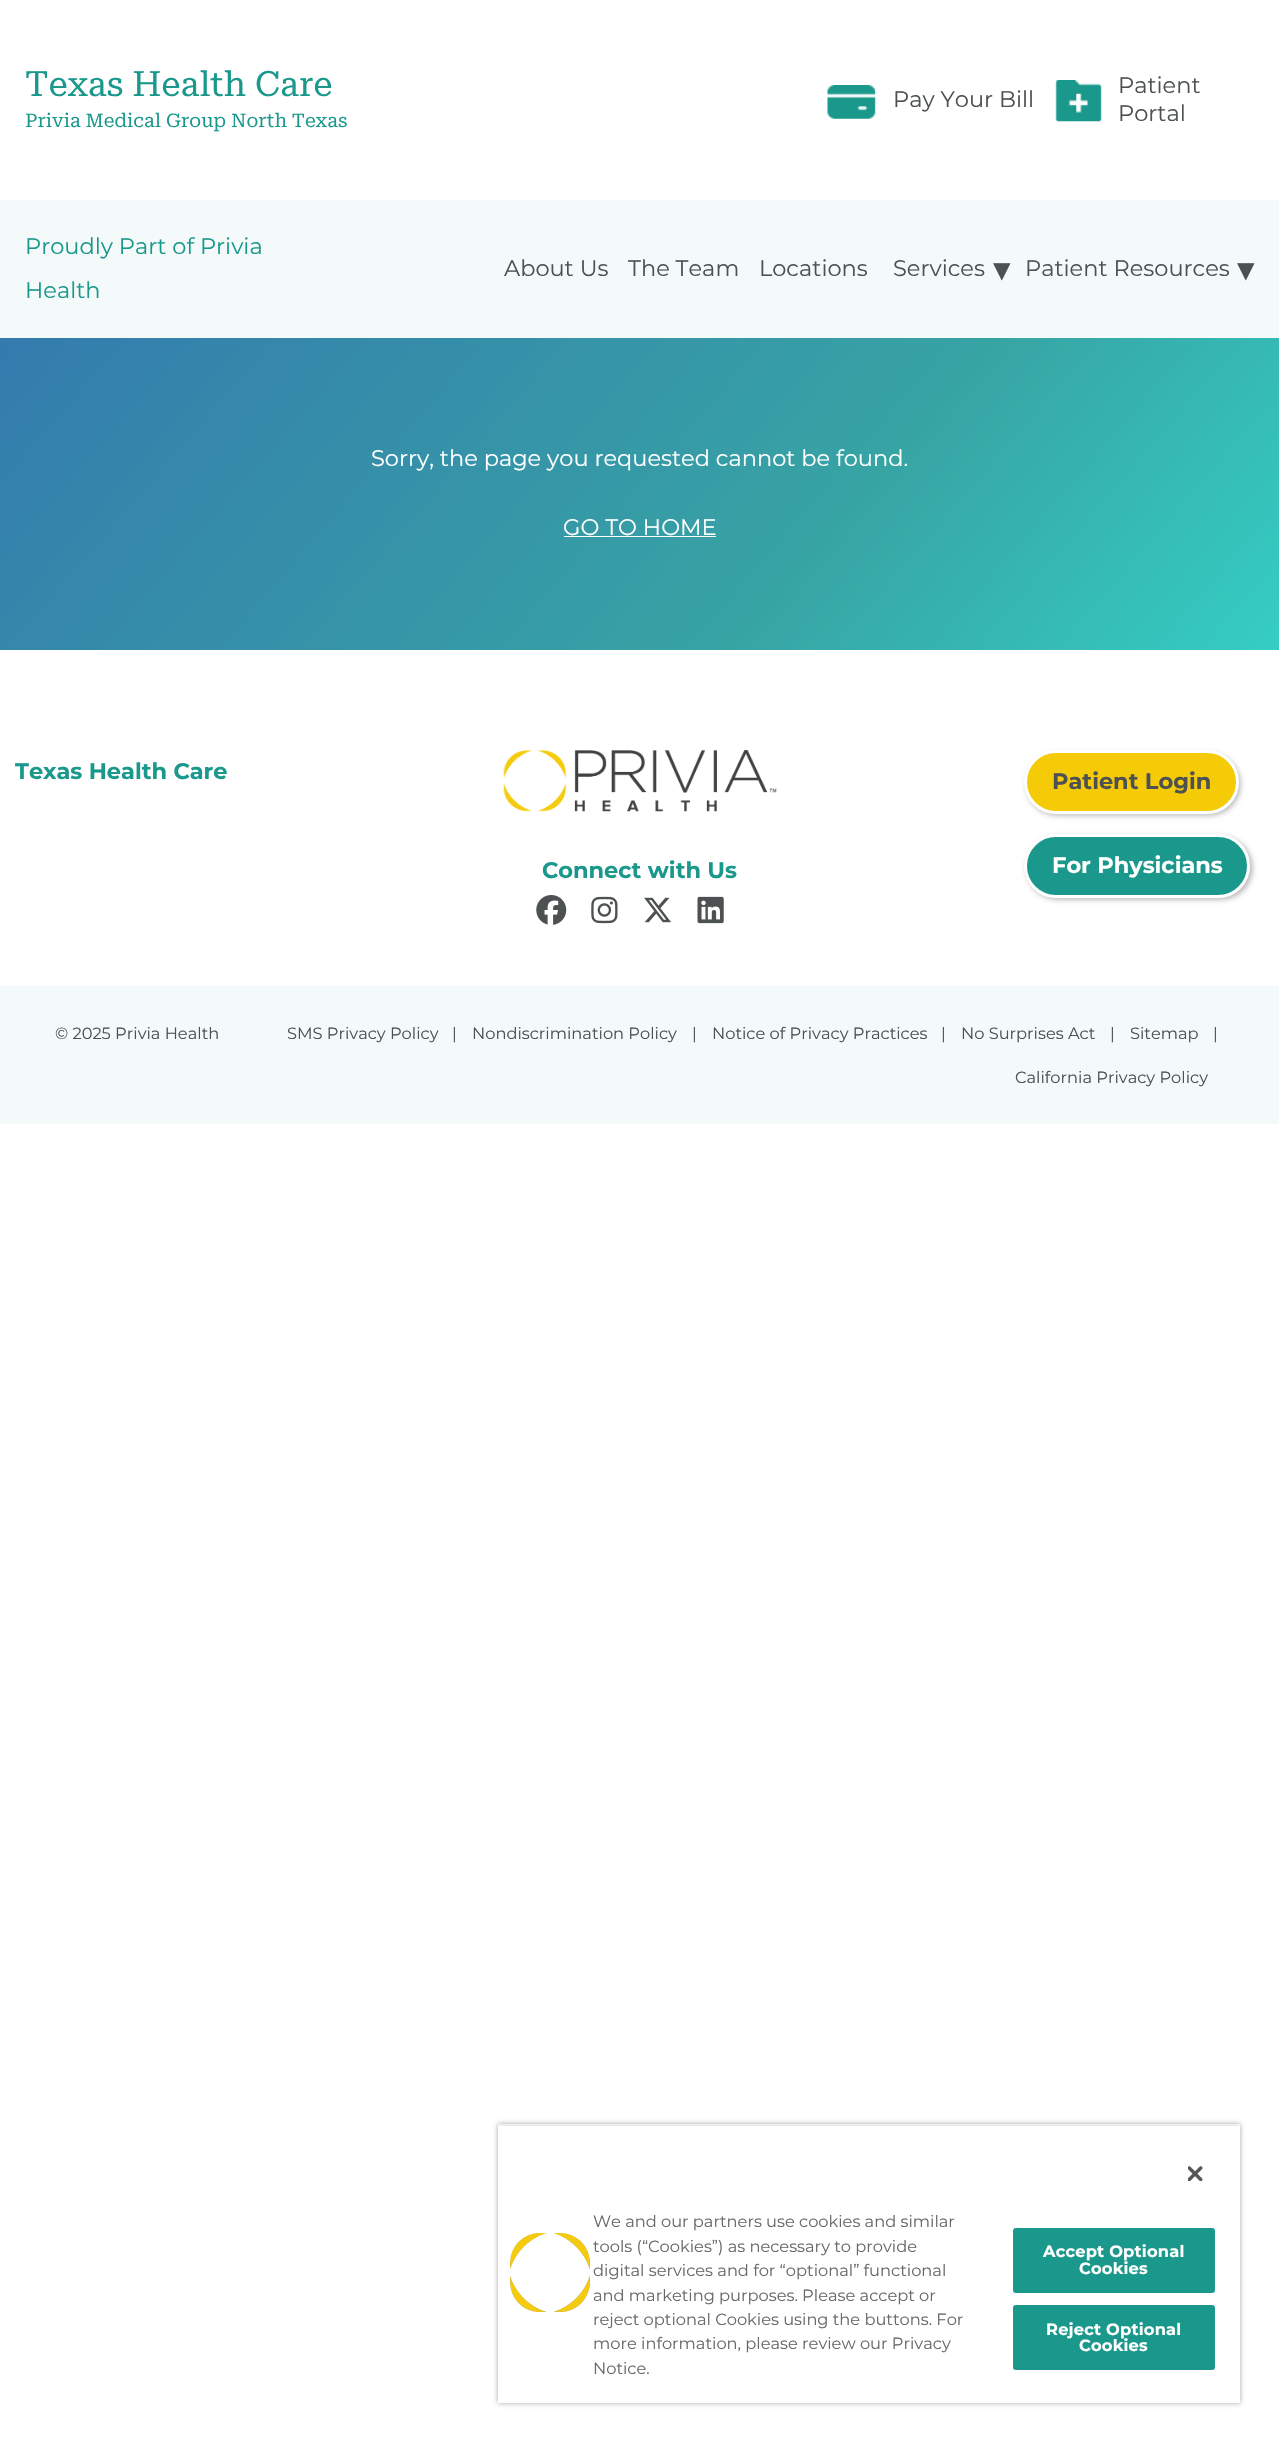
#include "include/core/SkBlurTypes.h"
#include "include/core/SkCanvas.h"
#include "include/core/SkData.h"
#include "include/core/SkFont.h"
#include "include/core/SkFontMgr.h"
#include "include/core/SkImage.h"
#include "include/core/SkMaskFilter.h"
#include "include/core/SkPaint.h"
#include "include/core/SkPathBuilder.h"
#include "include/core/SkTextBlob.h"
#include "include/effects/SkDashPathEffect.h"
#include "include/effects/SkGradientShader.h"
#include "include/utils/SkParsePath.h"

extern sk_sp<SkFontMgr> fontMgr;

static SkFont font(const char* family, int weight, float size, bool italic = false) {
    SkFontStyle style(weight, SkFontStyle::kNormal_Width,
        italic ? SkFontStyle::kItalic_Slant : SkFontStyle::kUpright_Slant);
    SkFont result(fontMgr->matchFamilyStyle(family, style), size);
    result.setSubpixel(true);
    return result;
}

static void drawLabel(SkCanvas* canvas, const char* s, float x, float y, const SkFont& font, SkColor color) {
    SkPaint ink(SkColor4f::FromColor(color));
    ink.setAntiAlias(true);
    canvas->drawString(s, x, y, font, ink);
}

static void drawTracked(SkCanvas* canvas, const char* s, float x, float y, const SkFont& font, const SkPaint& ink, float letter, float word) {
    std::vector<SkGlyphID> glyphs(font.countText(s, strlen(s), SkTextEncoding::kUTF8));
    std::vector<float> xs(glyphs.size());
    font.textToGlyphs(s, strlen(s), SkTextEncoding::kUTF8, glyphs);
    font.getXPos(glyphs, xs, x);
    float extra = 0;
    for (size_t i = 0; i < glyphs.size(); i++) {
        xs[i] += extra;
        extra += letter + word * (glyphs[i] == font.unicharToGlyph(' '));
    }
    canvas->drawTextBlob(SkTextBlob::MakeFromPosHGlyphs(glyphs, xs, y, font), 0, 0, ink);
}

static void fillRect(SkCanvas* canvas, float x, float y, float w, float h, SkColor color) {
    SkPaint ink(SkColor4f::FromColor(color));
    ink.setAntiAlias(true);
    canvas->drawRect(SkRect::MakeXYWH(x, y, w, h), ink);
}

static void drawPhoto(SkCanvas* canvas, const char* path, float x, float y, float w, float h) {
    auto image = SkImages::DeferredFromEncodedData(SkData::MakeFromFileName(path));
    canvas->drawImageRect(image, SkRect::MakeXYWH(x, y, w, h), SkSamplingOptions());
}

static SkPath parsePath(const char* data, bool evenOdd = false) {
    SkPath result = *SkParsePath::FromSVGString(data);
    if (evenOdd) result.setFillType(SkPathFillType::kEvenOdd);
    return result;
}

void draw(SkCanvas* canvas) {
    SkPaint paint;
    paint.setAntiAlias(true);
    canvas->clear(0xFFFFFFFF);
    SkFont font1 = font("Roboto Serif", 400, 35);
    drawLabel(canvas, "Texas Health Care", 25, 96, font1, 0xFF19988B);
    SkFont font2 = font("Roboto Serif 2", 400, 18.75f);
    drawLabel(canvas, "Privia Medical Group North Texas", 25, 127, font2, 0xFF19988B);
    drawPhoto(canvas, "assets/img1.png", 827, 85, 50, 34);
    SkFont font3 = font("Montserrat", 400, 22.5f);
    drawLabel(canvas, "Pay Your Bill", 893, 107, font3, 0xFF4D5151);
    drawPhoto(canvas, "assets/img2.png", 1055, 80, 47, 42);
    drawLabel(canvas, "Patient", 1118, 93, font3, 0xFF4D5151);
    drawLabel(canvas, "Portal", 1118, 121, font3, 0xFF4D5151);
    fillRect(canvas, 0, 200, 1279, 138, 0xFFF4FAFA);
    drawLabel(canvas, "Proudly Part of Privia", 25, 254, font3, 0xFF19988B);
    drawLabel(canvas, "Health", 25, 298, font3, 0xFF19988B);
    drawLabel(canvas, "About Us", 504, 276, font3, 0xFF4D5151);
    drawLabel(canvas, "The Team", 628, 276, font3, 0xFF4D5151);
    drawLabel(canvas, "Locations", 759, 276, font3, 0xFF4D5151);
    drawLabel(canvas, "Services", 893, 276, font3, 0xFF4D5151);
    SkFont font4 = font("DejaVu Sans", 400, 35);
    drawLabel(canvas, "▾", 993, 281, font4, 0xFF4D5151);
    drawLabel(canvas, "Patient Resources", 1025, 276, font3, 0xFF4D5151);
    drawLabel(canvas, "▾", 1237, 281, font4, 0xFF4D5151);
    {
        const SkColor colors[] = {0xFF3373B0, 0xFF37A4A4, 0xFF32FFEA};
        const float stops[] = {0, 0.5f, 1};
        const SkPoint ends[] = {{77, 7.1f}, {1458, 1200}};
        paint.setShader(SkGradientShader::MakeLinear(ends, colors, stops, 3, SkTileMode::kClamp));
        paint.setAlpha(255);
    }
    canvas->drawRect(SkRect::MakeXYWH(0, 338, 1279, 312), paint);
    drawLabel(canvas, "Sorry, the page you requested cannot be found.", 371, 466, font3, 0xFFFFFFFF);
    drawLabel(canvas, "GO TO HOME", 563, 535, font3, 0xFFFFFFFF);
    fillRect(canvas, 564, 536, 152, 1, 0xFFFFFFFF);
    SkFont font5 = font("Montserrat", 700, 22.5f);
    drawLabel(canvas, "Texas Health Care", 15, 779, font5, 0xFF19988B);
    drawPhoto(canvas, "assets/img3.png", 503, 750, 274, 62);
    drawLabel(canvas, "Connect with Us", 542, 878, font5, 0xFF19988B);
    drawPhoto(canvas, "assets/img4.png", 536, 895, 31, 30);
    drawPhoto(canvas, "assets/img5.png", 591, 896, 27, 28);
    drawPhoto(canvas, "assets/img6.png", 644, 897, 27, 26);
    drawPhoto(canvas, "assets/img7.png", 697, 896, 27, 28);
    paint.setShader(nullptr);
    paint.setColor(0x40000000);
    paint.setMaskFilter(SkMaskFilter::MakeBlur(kNormal_SkBlurStyle, 2.5f));
    canvas->drawRoundRect(SkRect::MakeXYWH(1026, 753, 215, 63), 31.5f, 31.5f, paint);
    paint.setMaskFilter(nullptr);
    paint.setColor(0xFFF5CB08);
    canvas->drawRoundRect(SkRect::MakeXYWH(1025.5f, 751.5f, 212, 61), 30.5f, 30.5f, paint);
    paint.setStroke(true);
    paint.setStrokeWidth(3);
    paint.setColor(0xFFFFFFFF);
    canvas->drawRoundRect(SkRect::MakeXYWH(1025.5f, 751.5f, 212, 61), 30.5f, 30.5f, paint);
    drawLabel(canvas, "Patient Login", 1052, 789, font5, 0xFF4D5151);
    paint.setStroke(false);
    paint.setColor(0x40000000);
    paint.setMaskFilter(SkMaskFilter::MakeBlur(kNormal_SkBlurStyle, 2.5f));
    canvas->drawRoundRect(SkRect::MakeXYWH(1026, 836, 227, 64), 32, 32, paint);
    paint.setMaskFilter(nullptr);
    paint.setColor(0xFF19988B);
    canvas->drawRoundRect(SkRect::MakeXYWH(1025.5f, 835.5f, 223, 61), 30.5f, 30.5f, paint);
    paint.setStroke(true);
    paint.setColor(0xFFFFFFFF);
    canvas->drawRoundRect(SkRect::MakeXYWH(1025.5f, 835.5f, 223, 61), 30.5f, 30.5f, paint);
    drawLabel(canvas, "For Physicians", 1052, 873, font5, 0xFFFFFFFF);
    fillRect(canvas, 0, 986, 1279, 138, 0xFFF4FAFA);
    SkFont font6 = font("Montserrat", 400, 16.25f);
    drawLabel(canvas, "© 2025 Privia Health", 55, 1039, font6, 0xFF4D5151);
    drawLabel(canvas, "SMS Privacy Policy", 287, 1039, font6, 0xFF4D5151);
    drawLabel(canvas, "|", 452, 1039, font6, 0xFF4D5151);
    drawLabel(canvas, "Nondiscrimination Policy", 472, 1039, font6, 0xFF4D5151);
    drawLabel(canvas, "|", 692, 1039, font6, 0xFF4D5151);
    drawLabel(canvas, "Notice of Privacy Practices", 712, 1039, font6, 0xFF4D5151);
    drawLabel(canvas, "|", 941, 1039, font6, 0xFF4D5151);
    drawLabel(canvas, "No Surprises Act", 961, 1039, font6, 0xFF4D5151);
    drawLabel(canvas, "|", 1110, 1039, font6, 0xFF4D5151);
    drawLabel(canvas, "Sitemap", 1130, 1039, font6, 0xFF4D5151);
    drawLabel(canvas, "|", 1213, 1039, font6, 0xFF4D5151);
    drawLabel(canvas, "California Privacy Policy", 1015, 1083, font6, 0xFF4D5151);
    canvas->save();
    canvas->clipPath(parsePath("M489 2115H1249V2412H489ZM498 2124H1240V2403H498Z", true), true);
    paint.setStroke(false);
    paint.setColor(0x59000000);
    paint.setMaskFilter(SkMaskFilter::MakeBlur(kNormal_SkBlurStyle, 2.5f));
    canvas->drawRect(SkRect::MakeXYWH(498, 2124, 742, 279), paint);
    paint.setMaskFilter(nullptr);
    canvas->restore();
    canvas->save();
    canvas->clipRect(SkRect::MakeXYWH(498, 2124, 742, 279));
    paint.setColor(0x33000000);
    paint.setMaskFilter(SkMaskFilter::MakeBlur(kNormal_SkBlurStyle, 2.5f));
    canvas->drawRect(SkRect::MakeXYWH(498, 2126, 742, 277), paint);
    paint.setMaskFilter(nullptr);
    canvas->restore();
    fillRect(canvas, 498, 2126, 742, 277, 0xFFFFFFFF);
    drawPhoto(canvas, "assets/img8.png", 1188, 2166, 15, 15);
    drawPhoto(canvas, "assets/img9.png", 510, 2233, 80, 79);
    drawLabel(canvas, "We and our partners use cookies and similar", 593, 2227, font6, 0xFF696969);
    drawLabel(canvas, "tools (“Cookies”) as necessary to provide", 593, 2252, font6, 0xFF696969);
    drawLabel(canvas, "digital services and for “optional” functional", 593, 2276, font6, 0xFF696969);
    drawLabel(canvas, "and marketing purposes. Please accept or", 593, 2301, font6, 0xFF696969);
    drawLabel(canvas, "reject optional Cookies using the buttons. For", 593, 2325, font6, 0xFF696969);
    drawLabel(canvas, "more information, please review our Privacy", 593, 2349, font6, 0xFF696969);
    drawLabel(canvas, "Notice.", 593, 2374, font6, 0xFF696969);
    paint.setColor(0xFF19988B);
    canvas->drawRoundRect(SkRect::MakeXYWH(1013.5f, 2228.5f, 201, 64), 2, 2, paint);
    paint.setStroke(true);
    paint.setStrokeWidth(1);
    canvas->drawRoundRect(SkRect::MakeXYWH(1013.5f, 2228.5f, 201, 64), 2, 2, paint);
    SkFont font7 = font("Montserrat", 700, 16.25f);
    paint.setStroke(false);
    paint.setColor(0xFFFFFFFF);
    drawTracked(canvas, "Accept Optional", 1043, 2257, font7, paint, 0.2f, 0);
    drawTracked(canvas, "Cookies", 1079, 2274, font7, paint, 0.2f, 0);
    paint.setColor(0xFF19988B);
    canvas->drawRoundRect(SkRect::MakeXYWH(1013.5f, 2305.5f, 201, 64), 2, 2, paint);
    paint.setStroke(true);
    canvas->drawRoundRect(SkRect::MakeXYWH(1013.5f, 2305.5f, 201, 64), 2, 2, paint);
    paint.setStroke(false);
    paint.setColor(0xFFFFFFFF);
    drawTracked(canvas, "Reject Optional", 1046, 2335, font7, paint, 0.2f, 0);
    drawTracked(canvas, "Cookies", 1079, 2351, font7, paint, 0.2f, 0);
}
